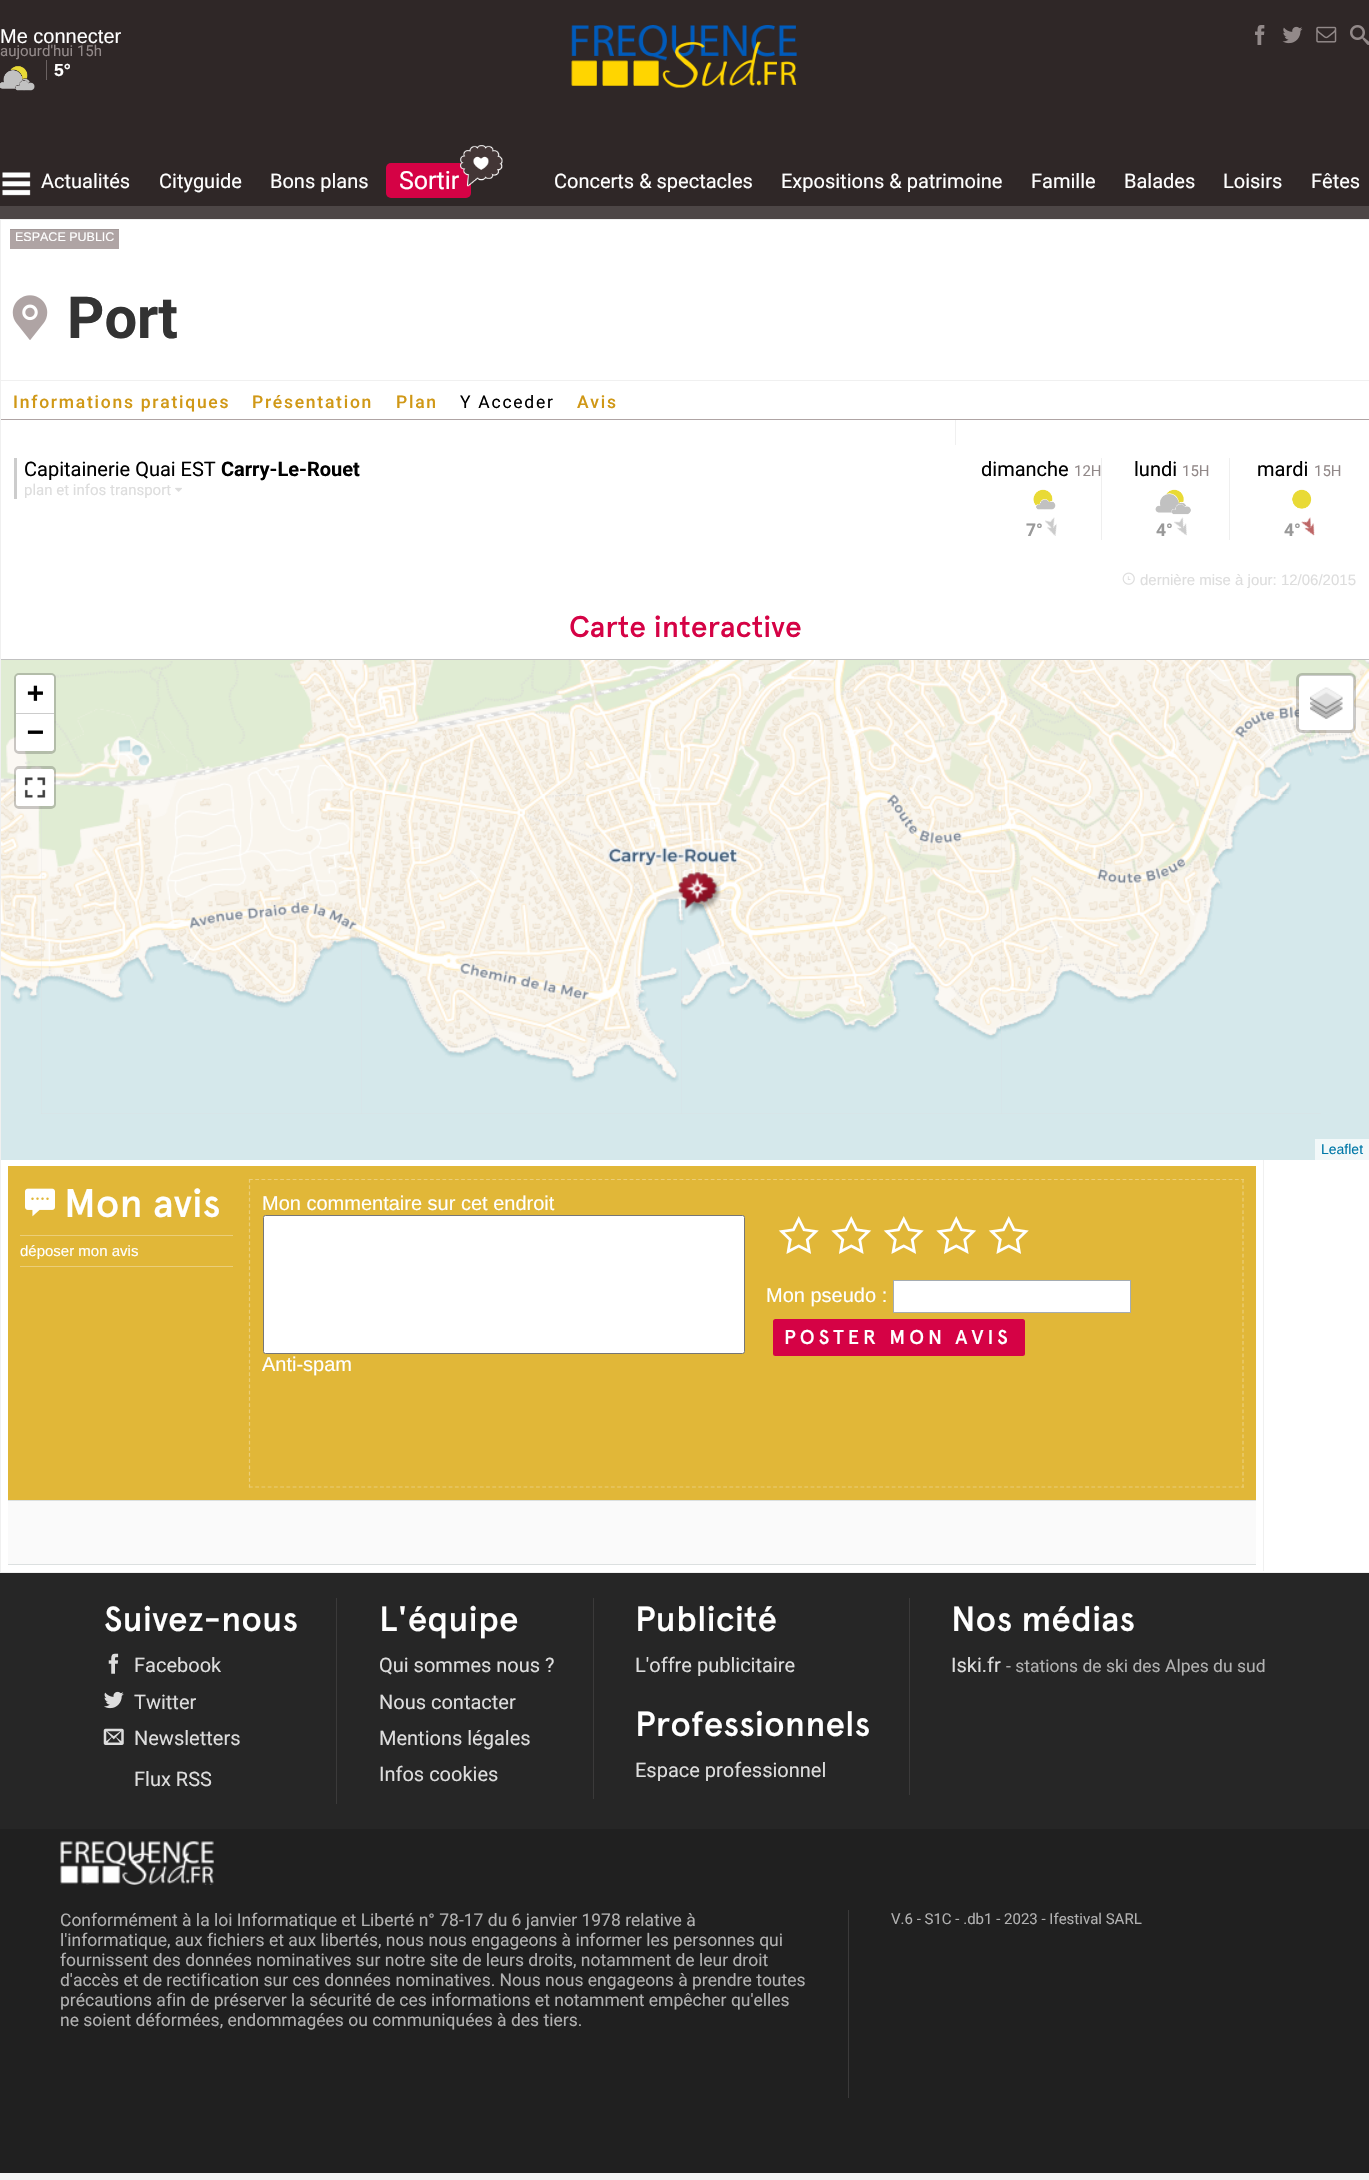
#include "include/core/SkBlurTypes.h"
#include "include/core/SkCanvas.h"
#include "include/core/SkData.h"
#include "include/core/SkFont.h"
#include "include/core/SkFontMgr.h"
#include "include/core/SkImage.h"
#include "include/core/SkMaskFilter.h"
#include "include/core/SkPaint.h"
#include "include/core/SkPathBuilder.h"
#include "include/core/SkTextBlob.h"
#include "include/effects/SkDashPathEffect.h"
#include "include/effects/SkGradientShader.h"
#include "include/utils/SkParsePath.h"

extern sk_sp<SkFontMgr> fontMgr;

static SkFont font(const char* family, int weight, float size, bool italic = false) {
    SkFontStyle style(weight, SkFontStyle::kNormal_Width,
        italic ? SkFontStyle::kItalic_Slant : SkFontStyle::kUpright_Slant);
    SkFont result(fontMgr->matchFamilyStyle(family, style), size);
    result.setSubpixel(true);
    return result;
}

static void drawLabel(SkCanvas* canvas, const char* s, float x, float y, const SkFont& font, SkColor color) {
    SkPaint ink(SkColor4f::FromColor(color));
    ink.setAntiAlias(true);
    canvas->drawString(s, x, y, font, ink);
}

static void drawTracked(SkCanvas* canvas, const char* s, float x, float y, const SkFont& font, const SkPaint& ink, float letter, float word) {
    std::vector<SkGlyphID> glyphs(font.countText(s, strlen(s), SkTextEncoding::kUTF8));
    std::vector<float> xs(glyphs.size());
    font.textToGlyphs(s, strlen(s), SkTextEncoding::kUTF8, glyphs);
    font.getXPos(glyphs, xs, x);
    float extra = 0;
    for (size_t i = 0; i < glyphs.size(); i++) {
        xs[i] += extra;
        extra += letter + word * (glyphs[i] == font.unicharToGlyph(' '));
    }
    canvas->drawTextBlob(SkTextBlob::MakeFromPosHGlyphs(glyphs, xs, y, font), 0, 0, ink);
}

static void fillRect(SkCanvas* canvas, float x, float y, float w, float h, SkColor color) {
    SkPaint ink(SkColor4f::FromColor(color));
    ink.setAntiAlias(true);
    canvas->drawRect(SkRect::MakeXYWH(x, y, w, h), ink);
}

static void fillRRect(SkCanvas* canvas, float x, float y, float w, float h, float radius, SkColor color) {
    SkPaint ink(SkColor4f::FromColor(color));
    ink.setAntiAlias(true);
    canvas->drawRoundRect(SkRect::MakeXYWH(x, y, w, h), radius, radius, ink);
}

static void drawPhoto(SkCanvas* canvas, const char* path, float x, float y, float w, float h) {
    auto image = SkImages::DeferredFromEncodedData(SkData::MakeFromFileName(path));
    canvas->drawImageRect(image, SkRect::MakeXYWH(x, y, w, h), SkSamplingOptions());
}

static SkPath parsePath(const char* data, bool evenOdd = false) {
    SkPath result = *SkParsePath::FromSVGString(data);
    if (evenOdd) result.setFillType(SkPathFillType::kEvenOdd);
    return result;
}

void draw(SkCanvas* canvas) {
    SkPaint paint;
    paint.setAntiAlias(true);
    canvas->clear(0xFFF5F5F5);
    fillRect(canvas, 0, 0, 1369, 206, 0xFF2F2727);
    SkFont font1 = font("Liberation Sans", 400, 20);
    drawLabel(canvas, "Me connecter", 0, 43, font1, 0xFFFFFFFF);
    SkFont font2 = font("Roboto", 400, 15);
    drawLabel(canvas, "aujourd'hui 15h", 0, 56, font2, 0xFF928989);
    drawPhoto(canvas, "assets/img1.png", 0, 66, 35, 25);
    fillRect(canvas, 46, 60, 1, 20, 0xFF6B6262);
    SkFont font3 = font("Liberation Sans", 700, 17.5f);
    drawLabel(canvas, "5°", 54, 76, font3, 0xFFFFFFFF);
    drawPhoto(canvas, "assets/img2.png", 571, 25, 226, 63);
    drawPhoto(canvas, "assets/img3.png", 1255, 25, 10, 20);
    drawPhoto(canvas, "assets/img4.png", 1282, 26, 21, 18);
    drawPhoto(canvas, "assets/img5.png", 1316, 26, 21, 17);
    drawPhoto(canvas, "assets/img6.png", 1350, 25, 19, 20);
    drawPhoto(canvas, "assets/img7.png", 2, 172, 29, 24);
    SkFont font4 = font("Roboto", 400, 20);
    drawLabel(canvas, "Actualités", 41, 188, font4, 0xFFFFFFFF);
    drawLabel(canvas, "Cityguide", 159, 188, font4, 0xFFFFFFFF);
    drawLabel(canvas, "Bons plans", 270, 188, font4, 0xFFFFFFFF);
    fillRRect(canvas, 386, 163, 85, 35, 5, 0xFFD50245);
    SkFont font5 = font("Roboto", 400, 25);
    drawLabel(canvas, "Sortir", 399, 189, font5, 0xFFFFFFFF);
    drawPhoto(canvas, "assets/img8.png", 460, 145, 43, 42);
    drawLabel(canvas, "Concerts & spectacles", 554, 188, font4, 0xFFFFFFFF);
    drawLabel(canvas, "Expositions & patrimoine", 781, 188, font4, 0xFFFFFFFF);
    drawLabel(canvas, "Famille", 1031, 188, font4, 0xFFFFFFFF);
    drawLabel(canvas, "Balades", 1124, 188, font4, 0xFFFFFFFF);
    drawLabel(canvas, "Loisirs", 1223, 188, font4, 0xFFFFFFFF);
    drawLabel(canvas, "Fêtes", 1311, 188, font4, 0xFFFFFFFF);
    fillRect(canvas, 0, 206, 1369, 13, 0xFF4D4646);
    paint.setColor(0xFFFFFFFF);
    canvas->drawRect(SkRect::MakeXYWH(0.5f, 219.5f, 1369, 1353), paint);
    paint.setStroke(true);
    paint.setStrokeWidth(1);
    paint.setColor(0xFFF0F0F0);
    canvas->drawRect(SkRect::MakeXYWH(0.5f, 219.5f, 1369, 1353), paint);
    fillRect(canvas, 1, 380, 1368, 1, 0xFFF0F0F0);
    fillRect(canvas, 10, 230, 109, 19, 0xFFAFA4A4);
    fillRect(canvas, 10, 229, 109, 1, 0xFFA29898);
    SkFont font6 = font("Liberation Sans", 400, 12.5f);
    drawLabel(canvas, "ESPACE PUBLIC", 15, 241, font6, 0xFFFFFFFF);
    drawPhoto(canvas, "assets/img9.png", 12, 295, 36, 45);
    SkFont font7 = font("Roboto", 700, 58);
    drawLabel(canvas, "Port", 67, 338, font7, 0xFF333333);
    fillRect(canvas, 1, 419, 1368, 1, 0xFFAFA4A4);
    SkFont font8 = font("Roboto", 500, 17.5f);
    paint.setStroke(false);
    paint.setColor(0xFFD09816);
    drawTracked(canvas, "Informations pratiques", 13, 408, font8, paint, 1.75f, 0);
    drawTracked(canvas, "Présentation", 252, 408, font8, paint, 1.75f, 0);
    drawTracked(canvas, "Plan", 396, 408, font8, paint, 1.75f, 0);
    SkFont font9 = font("Roboto", 400, 17.5f);
    paint.setColor(0xFF000000);
    drawTracked(canvas, "Y Acceder", 460, 408, font9, paint, 1.75f, 0);
    paint.setColor(0xFFD09816);
    drawTracked(canvas, "Avis", 577, 408, font8, paint, 1.75f, 0);
    fillRect(canvas, 955, 420, 1, 25, 0xFFF0F0F0);
    fillRect(canvas, 14, 458, 3, 41, 0xFFCCCCCC);
    drawLabel(canvas, "Capitainerie Quai EST", 24, 476, font4, 0xFF000000);
    SkFont font10 = font("Roboto", 700, 20);
    drawLabel(canvas, "Carry-Le-Rouet", 221, 476, font10, 0xFF000000);
    drawLabel(canvas, "plan et infos transport", 24, 495, font2, 0xFFDDDDDD);
    drawPhoto(canvas, "assets/img10.png", 175, 487, 7, 5);
    fillRect(canvas, 1101, 458, 1, 82, 0xFFEFEFEF);
    drawLabel(canvas, "dimanche", 981, 476, font4, 0xFF000000);
    drawLabel(canvas, "12H", 1074, 476, font2, 0xFF928989);
    drawPhoto(canvas, "assets/img11.png", 1033, 489, 23, 21);
    SkFont font11 = font("Roboto", 700, 17.5f);
    drawLabel(canvas, "7°", 1026, 536, font11, 0xFF999999);
    drawPhoto(canvas, "assets/img12.png", 1045, 517, 12, 19);
    fillRect(canvas, 1229, 458, 1, 82, 0xFFEFEFEF);
    drawLabel(canvas, "lundi", 1134, 476, font4, 0xFF000000);
    drawLabel(canvas, "15H", 1182, 476, font2, 0xFF928989);
    drawPhoto(canvas, "assets/img13.png", 1155, 489, 36, 26);
    drawLabel(canvas, "4°", 1156, 536, font11, 0xFF999999);
    drawPhoto(canvas, "assets/img14.png", 1174, 517, 13, 19);
    drawLabel(canvas, "mardi", 1257, 476, font4, 0xFF000000);
    drawLabel(canvas, "15H", 1314, 476, font2, 0xFF928989);
    drawPhoto(canvas, "assets/img15.png", 1292, 489, 20, 20);
    drawLabel(canvas, "4°", 1284, 536, font11, 0xFF999999);
    drawPhoto(canvas, "assets/img16.png", 1301, 517, 14, 19);
    drawPhoto(canvas, "assets/img17.png", 1122, 572, 13, 13);
    SkFont font12 = font("Liberation Sans", 400, 15);
    drawLabel(canvas, "dernière mise à jour: 12/06/2015", 1140, 585, font12, 0xFFDDDDDD);
    SkFont font13 = font("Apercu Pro", 500, 30);
    drawLabel(canvas, "Carte interactive", 569, 637, font13, 0xFFD50245);
    fillRect(canvas, 41, 794, 1280, 320, 0xFFDDDDDD);
    fillRect(canvas, 1, 659, 1368, 1, 0xFFC1C1C1);
    drawPhoto(canvas, "assets/img18.png", 1, 660, 40, 134);
    drawPhoto(canvas, "assets/img20.png", 361, 660, 320, 134);
    drawPhoto(canvas, "assets/img26.png", 361, 794, 321, 320);
    drawPhoto(canvas, "assets/img25.png", 41, 793, 321, 321);
    drawPhoto(canvas, "assets/img19.png", 41, 660, 320, 134);
    drawPhoto(canvas, "assets/img21.png", 681, 660, 320, 134);
    drawPhoto(canvas, "assets/img22.png", 1001, 660, 320, 134);
    drawPhoto(canvas, "assets/img23.png", 1321, 660, 48, 134);
    drawPhoto(canvas, "assets/img24.png", 1, 794, 40, 320);
    drawPhoto(canvas, "assets/img27.png", 681, 794, 321, 320);
    drawPhoto(canvas, "assets/img28.png", 1001, 794, 320, 320);
    fillRect(canvas, 1321, 794, 48, 345, 0xFFD5E8EB);
    fillRect(canvas, 1, 1114, 1320, 46, 0xFFD5E8EB);
    drawPhoto(canvas, "assets/img30.png", 688, 879, 33, 37);
    drawPhoto(canvas, "assets/img29.png", 678, 872, 39, 38);
    paint.setStroke(true);
    paint.setStrokeWidth(3);
    paint.setColor(0x33000000);
    canvas->drawRoundRect(SkRect::MakeXYWH(15.5f, 674.5f, 39, 78), 3.5f, 3.5f, paint);
    paint.setStroke(false);
    paint.setColor(0xFFFFFFFF);
    canvas->drawPath(parsePath("M18.5 675H51.5C53 675 54 676 54 677.5V714H16V677.5C16 676 17 675 18.5 675Z"), paint);
    fillRect(canvas, 16, 713, 38, 1, 0xFFCCCCCC);
    SkFont font14 = font("DejaVu Sans Mono", 700, 28);
    drawLabel(canvas, "+", 27, 702, font14, 0xFF000000);
    canvas->drawPath(parsePath("M16 714H54V748.5C54 750 53 751 51.5 751H18.5C17 751 16 750 16 748.5Z"), paint);
    drawLabel(canvas, "−", 27, 741, font14, 0xFF000000);
    paint.setStroke(true);
    paint.setColor(0x33000000);
    canvas->drawRoundRect(SkRect::MakeXYWH(15.5f, 767.5f, 39, 40), 3.5f, 3.5f, paint);
    fillRRect(canvas, 16, 769, 38, 37, 2.5f, 0xFFFFFFFF);
    drawPhoto(canvas, "assets/img31.png", 24, 777, 22, 21);
    fillRRect(canvas, 1299, 675, 55, 55, 4, 0xFFFFFFFF);
    canvas->drawRoundRect(SkRect::MakeXYWH(1297.5f, 674.5f, 57, 57), 4.5f, 4.5f, paint);
    drawPhoto(canvas, "assets/img32.png", 1310, 687, 33, 32);
    fillRect(canvas, 1315, 1139, 54, 21, 0xFFF2F8F9);
    SkFont font15 = font("Liberation Sans", 400, 14);
    drawLabel(canvas, "Leaflet", 1321, 1154, font15, 0xFF0078A8);
    fillRect(canvas, 1263, 1160, 1, 411, 0xFFF0F0F0);
    fillRect(canvas, 8, 1166, 1248, 334, 0xFFE1B738);
    drawPhoto(canvas, "assets/img33.png", 25, 1188, 30, 29);
    SkFont font16 = font("Apercu Pro", 500, 40);
    drawLabel(canvas, "Mon avis", 64, 1217, font16, 0xFFFFFFFF);
    fillRect(canvas, 20, 1235, 213, 1, 0xFFEBCE78);
    fillRect(canvas, 20, 1266, 213, 1, 0xFFEBCE78);
    drawLabel(canvas, "déposer mon avis", 20, 1256, font12, 0xFFFFFFFF);
    paint.setStrokeWidth(1.2f);
    paint.setColor(0xFFEBCE78);
    paint.setPathEffect(SkDashPathEffect::Make({{3.75f, 2.49f}}, 0));
    canvas->drawPath(parsePath("M249 1179.5H1244"), paint);
    paint.setPathEffect(nullptr);
    paint.setPathEffect(SkDashPathEffect::Make({{3.75f, 2.48f}}, 0));
    canvas->drawPath(parsePath("M1243 1179V1487.5"), paint);
    paint.setPathEffect(nullptr);
    paint.setPathEffect(SkDashPathEffect::Make({{3.75f, 2.49f}}, 0));
    canvas->drawPath(parsePath("M249 1487H1244"), paint);
    paint.setPathEffect(nullptr);
    paint.setPathEffect(SkDashPathEffect::Make({{3.75f, 2.48f}}, 0));
    canvas->drawPath(parsePath("M249.5 1179V1487.5"), paint);
    paint.setPathEffect(nullptr);
    drawLabel(canvas, "Mon commentaire sur cet endroit", 262, 1210, font1, 0xFFFFFFFF);
    paint.setStroke(false);
    paint.setColor(0xFFFFFFFF);
    canvas->drawRoundRect(SkRect::MakeXYWH(263.5f, 1215.5f, 481, 138), 2, 2, paint);
    paint.setStroke(true);
    paint.setStrokeWidth(1);
    paint.setColor(0xFF767676);
    canvas->drawRoundRect(SkRect::MakeXYWH(263.5f, 1215.5f, 481, 138), 2, 2, paint);
    drawLabel(canvas, "Anti-spam", 262, 1371, font1, 0xFFFFFFFF);
    drawPhoto(canvas, "assets/img34.png", 778, 1216, 41, 38);
    drawPhoto(canvas, "assets/img35.png", 831, 1216, 41, 38);
    drawPhoto(canvas, "assets/img34.png", 883, 1216, 41, 38);
    drawPhoto(canvas, "assets/img35.png", 936, 1216, 41, 38);
    drawPhoto(canvas, "assets/img34.png", 988, 1216, 41, 38);
    drawLabel(canvas, "Mon pseudo :", 766, 1302, font1, 0xFFFFFFFF);
    paint.setStroke(false);
    paint.setColor(0xFFFFFFFF);
    canvas->drawRect(SkRect::MakeXYWH(893.5f, 1280.5f, 237, 32), paint);
    paint.setStroke(true);
    paint.setColor(0xFFA5ACB2);
    canvas->drawRect(SkRect::MakeXYWH(893.5f, 1280.5f, 237, 32), paint);
    fillRRect(canvas, 773, 1319, 252, 37, 2.5f, 0xFFD50245);
    SkFont font17 = font("Apercu Pro", 500, 20);
    paint.setStroke(false);
    paint.setColor(0xFFFFFFFF);
    drawTracked(canvas, "POSTER MON AVIS", 784, 1344, font17, paint, 4, 0);
    fillRect(canvas, 8, 1501, 1248, 63, 0xFFFAFAFA);
    fillRect(canvas, 8, 1500, 1248, 1, 0xFFDCE0E0);
    fillRect(canvas, 8, 1564, 1248, 1, 0xFFDCE0E0);
    fillRect(canvas, 0, 1829, 1369, 344, 0xFF202020);
    fillRect(canvas, 0, 1573, 1369, 256, 0xFF262626);
    fillRect(canvas, 336, 1598, 1, 206, 0xFF3B3A3A);
    SkFont font18 = font("Apercu Pro", 500, 35);
    drawLabel(canvas, "Suivez-nous", 104, 1631, font18, 0xFFFFFFFF);
    drawPhoto(canvas, "assets/img36.png", 108, 1653, 11, 21);
    drawLabel(canvas, "Facebook", 134, 1672, font4, 0xFFDDDDDD);
    drawPhoto(canvas, "assets/img37.png", 104, 1691, 20, 18);
    drawLabel(canvas, "Twitter", 134, 1709, font4, 0xFFDDDDDD);
    drawPhoto(canvas, "assets/img38.png", 103, 1728, 21, 17);
    drawLabel(canvas, "Newsletters", 134, 1745, font4, 0xFFDDDDDD);
    drawLabel(canvas, "Flux RSS", 134, 1786, font4, 0xFFDDDDDD);
    fillRect(canvas, 593, 1598, 1, 201, 0xFF3B3A3A);
    drawLabel(canvas, "L'équipe", 379, 1631, font18, 0xFFFFFFFF);
    drawLabel(canvas, "Qui sommes nous ?", 379, 1672, font4, 0xFFDDDDDD);
    drawLabel(canvas, "Nous contacter", 379, 1709, font4, 0xFFDDDDDD);
    drawLabel(canvas, "Mentions légales", 379, 1745, font4, 0xFFDDDDDD);
    drawLabel(canvas, "Infos cookies", 379, 1781, font4, 0xFFDDDDDD);
    fillRect(canvas, 909, 1598, 1, 197, 0xFF3B3A3A);
    drawLabel(canvas, "Publicité", 635, 1631, font18, 0xFFFFFFFF);
    drawLabel(canvas, "L'offre publicitaire", 635, 1672, font4, 0xFFDDDDDD);
    drawLabel(canvas, "Professionnels", 635, 1736, font18, 0xFFFFFFFF);
    drawLabel(canvas, "Espace professionnel", 635, 1777, font4, 0xFFDDDDDD);
    drawLabel(canvas, "Nos médias", 951, 1631, font18, 0xFFFFFFFF);
    drawLabel(canvas, "Iski.fr", 951, 1672, font4, 0xFFDDDDDD);
    drawLabel(canvas, "- stations de ski des Alpes du sud", 1006, 1672, font9, 0xFFB1B1B1);
    drawPhoto(canvas, "assets/img39.png", 60, 1841, 154, 44);
    fillRect(canvas, 848, 1910, 1, 188, 0xFF3B3A3A);
    drawLabel(canvas, "Conformément à la loi Informatique et Liberté n° 78-17 du 6 janvier 1978 relative à", 60, 1926, font9, 0xFFB1B1B1);
    drawLabel(canvas, "l'informatique, aux fichiers et aux libertés, nous nous engageons à informer les personnes qui", 60, 1946, font9, 0xFFB1B1B1);
    drawLabel(canvas, "fournissent des données nominatives sur notre site de leurs droits, notamment de leur droit", 60, 1966, font9, 0xFFB1B1B1);
    drawLabel(canvas, "d'accès et de rectification sur ces données nominatives. Nous nous engageons à prendre toutes", 60, 1986, font9, 0xFFB1B1B1);
    drawLabel(canvas, "précautions afin de préserver la sécurité de ces informations et notamment empêcher qu'elles", 60, 2006, font9, 0xFFB1B1B1);
    drawLabel(canvas, "ne soient déformées, endommagées ou communiquées à des tiers.", 60, 2026, font9, 0xFFB1B1B1);
    drawLabel(canvas, "V.6 - S1C - .db1 - 2023 - Ifestival SARL", 891, 1924, font2, 0xFFB1B1B1);
}
